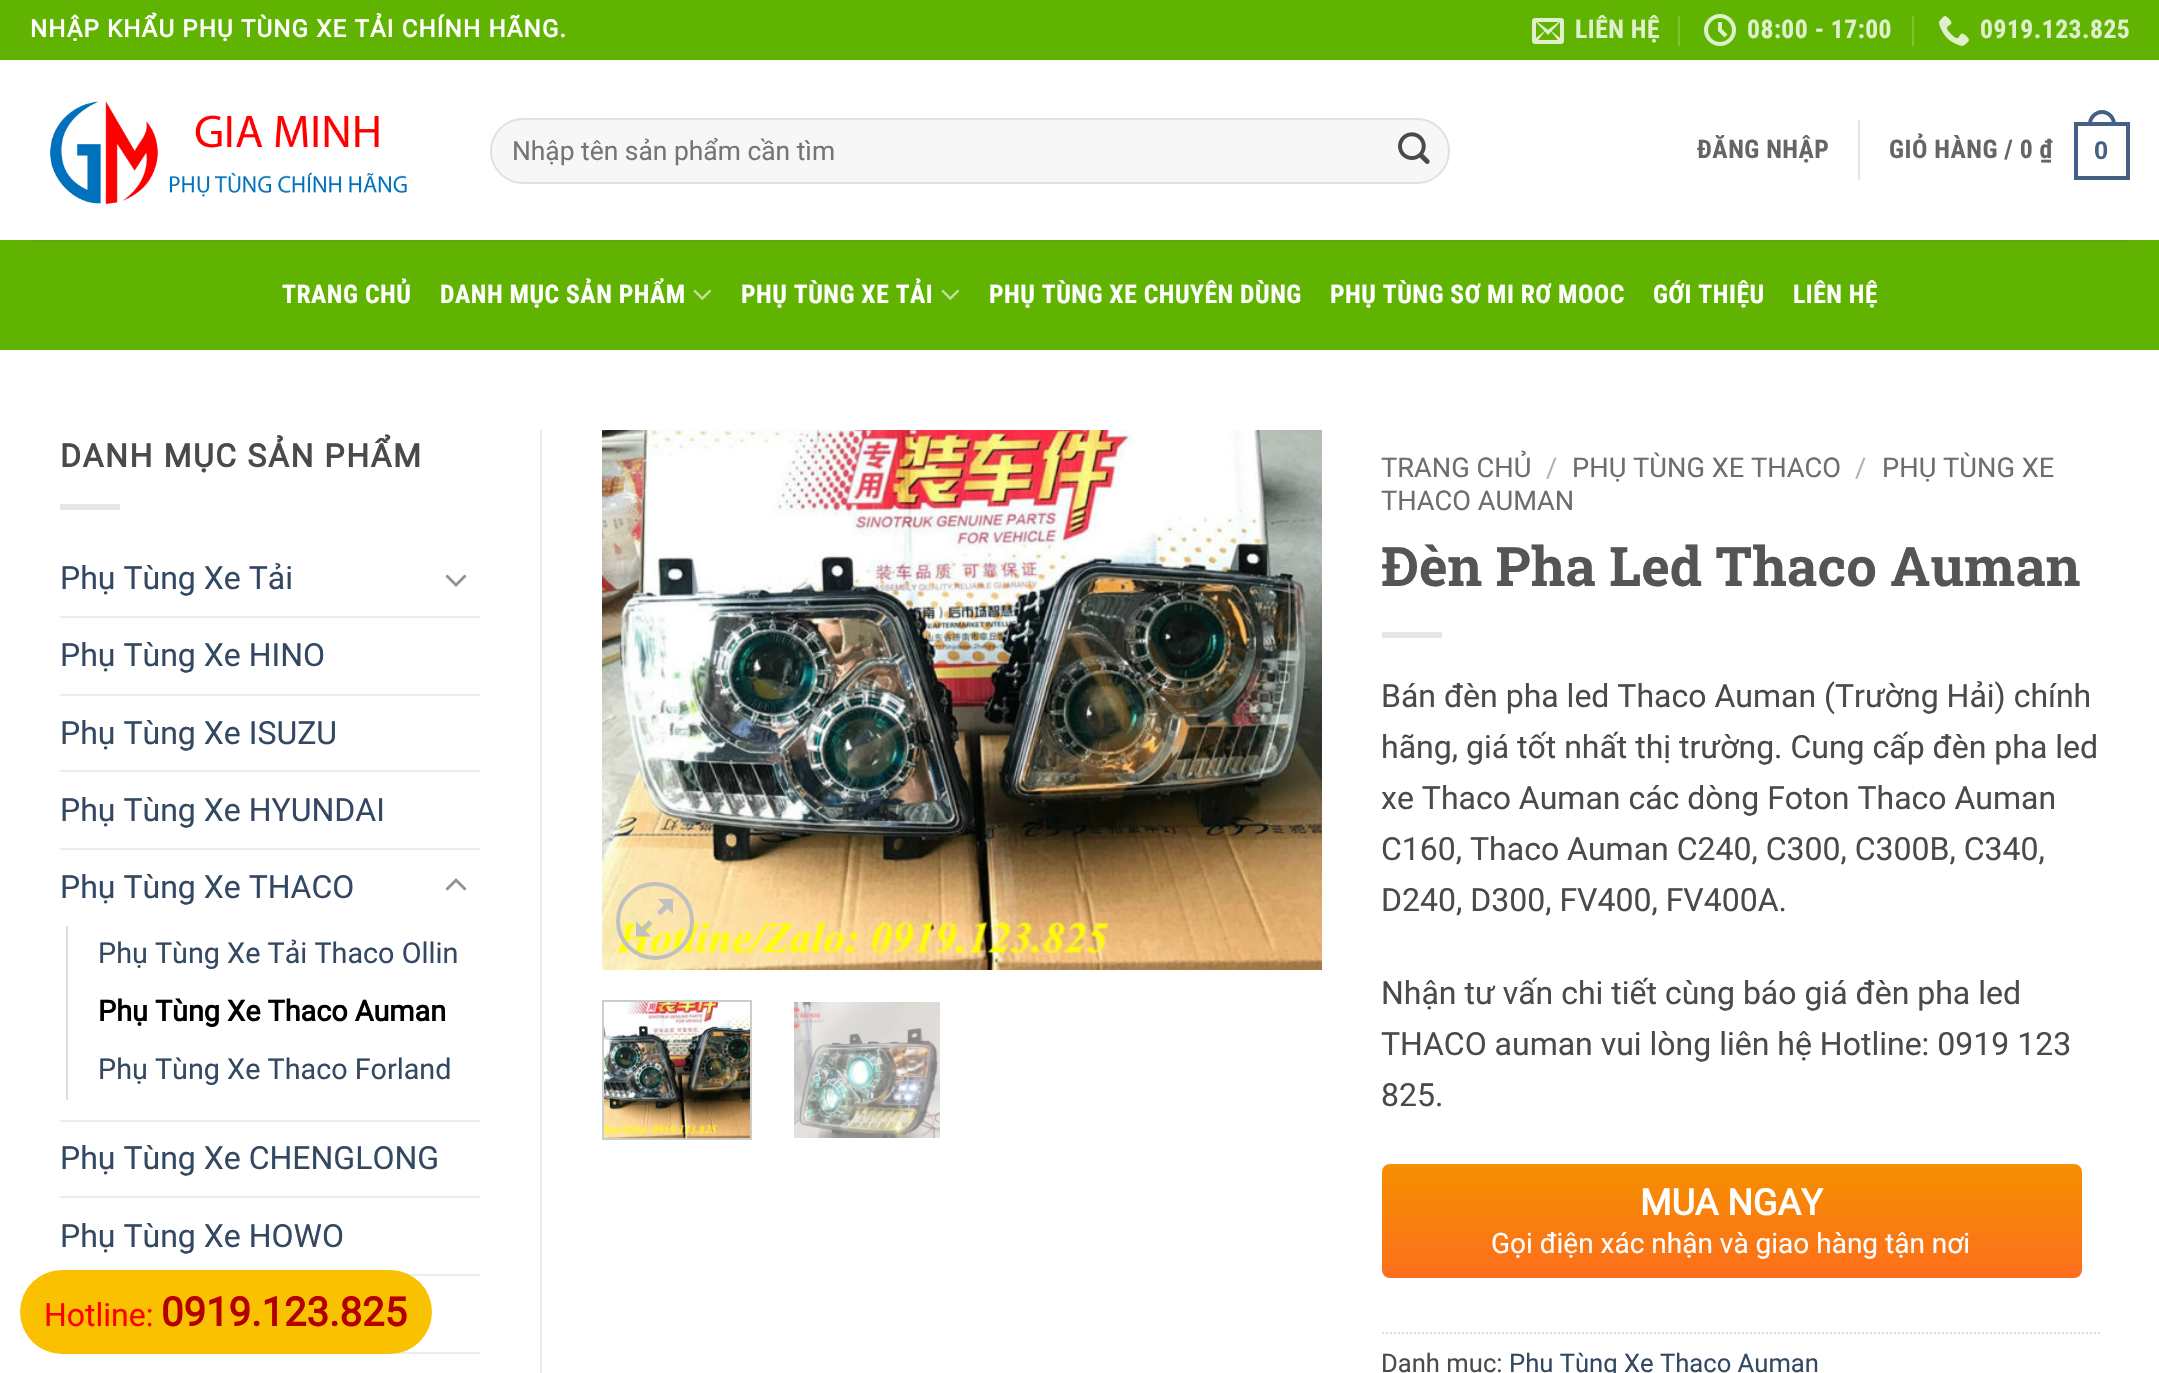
#include "include/core/SkBlurTypes.h"
#include "include/core/SkCanvas.h"
#include "include/core/SkData.h"
#include "include/core/SkFont.h"
#include "include/core/SkFontMgr.h"
#include "include/core/SkImage.h"
#include "include/core/SkMaskFilter.h"
#include "include/core/SkPaint.h"
#include "include/core/SkPathBuilder.h"
#include "include/core/SkTextBlob.h"
#include "include/effects/SkDashPathEffect.h"
#include "include/effects/SkGradientShader.h"
#include "include/utils/SkParsePath.h"

extern sk_sp<SkFontMgr> fontMgr;

static SkFont font(const char* family, int weight, float size, bool italic = false) {
    SkFontStyle style(weight, SkFontStyle::kNormal_Width,
        italic ? SkFontStyle::kItalic_Slant : SkFontStyle::kUpright_Slant);
    SkFont result(fontMgr->matchFamilyStyle(family, style), size);
    result.setSubpixel(true);
    return result;
}

static void drawLabel(SkCanvas* canvas, const char* s, float x, float y, const SkFont& font, SkColor color) {
    SkPaint ink(SkColor4f::FromColor(color));
    ink.setAntiAlias(true);
    canvas->drawString(s, x, y, font, ink);
}

static void drawTracked(SkCanvas* canvas, const char* s, float x, float y, const SkFont& font, const SkPaint& ink, float letter, float word) {
    std::vector<SkGlyphID> glyphs(font.countText(s, strlen(s), SkTextEncoding::kUTF8));
    std::vector<float> xs(glyphs.size());
    font.textToGlyphs(s, strlen(s), SkTextEncoding::kUTF8, glyphs);
    font.getXPos(glyphs, xs, x);
    float extra = 0;
    for (size_t i = 0; i < glyphs.size(); i++) {
        xs[i] += extra;
        extra += letter + word * (glyphs[i] == font.unicharToGlyph(' '));
    }
    canvas->drawTextBlob(SkTextBlob::MakeFromPosHGlyphs(glyphs, xs, y, font), 0, 0, ink);
}

static void fillRect(SkCanvas* canvas, float x, float y, float w, float h, SkColor color) {
    SkPaint ink(SkColor4f::FromColor(color));
    ink.setAntiAlias(true);
    canvas->drawRect(SkRect::MakeXYWH(x, y, w, h), ink);
}

static void fillRRect(SkCanvas* canvas, float x, float y, float w, float h, float radius, SkColor color) {
    SkPaint ink(SkColor4f::FromColor(color));
    ink.setAntiAlias(true);
    canvas->drawRoundRect(SkRect::MakeXYWH(x, y, w, h), radius, radius, ink);
}

static void drawPhoto(SkCanvas* canvas, const char* path, float x, float y, float w, float h) {
    auto image = SkImages::DeferredFromEncodedData(SkData::MakeFromFileName(path));
    canvas->drawImageRect(image, SkRect::MakeXYWH(x, y, w, h), SkSamplingOptions());
}

static SkPath parsePath(const char* data, bool evenOdd = false) {
    SkPath result = *SkParsePath::FromSVGString(data);
    if (evenOdd) result.setFillType(SkPathFillType::kEvenOdd);
    return result;
}

void draw(SkCanvas* canvas) {
    SkPaint paint;
    paint.setAntiAlias(true);
    canvas->clear(0xFFFFFFFF);
    fillRect(canvas, 0, 0, 2159, 60, 0xFF60B301);
    SkFont font1 = font("Roboto", 700, 24);
    paint.setColor(0xFFFFFFFF);
    drawTracked(canvas, "NHẬP KHẨU PHỤ TÙNG XE TẢI CHÍNH HÃNG.", 30, 37, font1, paint, 1.2f, 0);
    drawPhoto(canvas, "assets/img1.png", 1532, 18, 32, 26);
    SkFont font2 = font("Roboto Condensed", 700, 25.6f);
    paint.setColor(0xFFDFF0CC);
    drawTracked(canvas, "LIÊN HỆ", 1575, 38, font2, paint, 0.5f, 0);
    fillRect(canvas, 1678, 16, 2, 30, 0xFF80C234);
    drawPhoto(canvas, "assets/img2.png", 1704, 14, 32, 32);
    drawTracked(canvas, "08:00 - 17:00", 1747, 38, font2, paint, 0.5f, 0);
    fillRect(canvas, 1912, 16, 2, 30, 0xFF80C234);
    drawPhoto(canvas, "assets/img3.png", 1939, 16, 30, 30);
    drawTracked(canvas, "0919.123.825", 1980, 38, font2, paint, 0.5f, 0);
    drawPhoto(canvas, "assets/img4.png", 50, 101, 357, 104);
    fillRRect(canvas, 490, 118, 960, 66, 33, 0xFFF7F7F7);
    paint.setStroke(true);
    paint.setStrokeWidth(2);
    paint.setColor(0x17000000);
    canvas->drawRoundRect(SkRect::MakeXYWH(491, 119, 958, 64), 32, 32, paint);
    SkFont font3 = font("Roboto", 400, 26.4f);
    drawLabel(canvas, "Nhập tên sản phẩm cần tìm", 512, 160, font3, 0xFF757575);
    drawPhoto(canvas, "assets/img5.png", 1398, 132, 32, 32);
    paint.setStroke(false);
    paint.setColor(0xFF656565);
    drawTracked(canvas, "ĐĂNG NHẬP", 1697, 158, font2, paint, 0.5f, 0);
    fillRect(canvas, 1858, 120, 2, 60, 0xFFE6E6E6);
    drawTracked(canvas, "GIỎ HÀNG / 0 ₫", 1889, 158, font2, paint, 0.5f, 0);
    paint.setStroke(true);
    paint.setStrokeWidth(4);
    paint.setColor(0xFF446084);
    canvas->drawRect(SkRect::MakeXYWH(2076, 124, 52, 54), paint);
    paint.setStroke(false);
    canvas->drawPath(parsePath("M2102 110C2109.5 110 2116 116.5 2116 124V126H2088V124C2088 116.5 2094.5 110 2102 110ZM2102 114C2107.5 114 2112 118.5 2112 124V126H2092V124C2092 118.5 2096.5 114 2102 114Z", true), paint);
    SkFont font4 = font("Liberation Sans", 700, 25.6f);
    drawTracked(canvas, "0", 2094, 159, font4, paint, 0.5f, 0);
    fillRect(canvas, 0, 240, 2159, 110, 0xFF60B301);
    fillRect(canvas, 30, 240, 2100, 2, 0xFF5EA808);
    paint.setColor(0xFFFFFFFF);
    drawTracked(canvas, "TRANG CHỦ", 282, 303, font2, paint, 0.5f, 0);
    drawTracked(canvas, "DANH MỤC SẢN PHẨM", 440, 303, font2, paint, 0.5f, 0);
    drawPhoto(canvas, "assets/img6.png", 693, 289, 19, 11);
    drawTracked(canvas, "PHỤ TÙNG XE TẢI", 741, 303, font2, paint, 0.5f, 0);
    drawPhoto(canvas, "assets/img6.png", 941, 289, 19, 11);
    drawTracked(canvas, "PHỤ TÙNG XE CHUYÊN DÙNG", 989, 303, font2, paint, 0.5f, 0);
    drawTracked(canvas, "PHỤ TÙNG SƠ MI RƠ MOOC", 1330, 303, font2, paint, 0.5f, 0);
    drawTracked(canvas, "GỚI THIỆU", 1653, 303, font2, paint, 0.5f, 0);
    drawTracked(canvas, "LIÊN HỆ", 1793, 303, font2, paint, 0.5f, 0);
    SkFont font5 = font("Roboto", 700, 32);
    paint.setColor(0xFF4A4A4A);
    drawTracked(canvas, "DANH MỤC SẢN PHẨM", 60, 467, font5, paint, 1.6f, 0);
    fillRect(canvas, 60, 504, 60, 6, 0xFFE6E6E6);
    SkFont font6 = font("Roboto", 400, 32);
    drawLabel(canvas, "Phụ Tùng Xe Tải", 60, 589, font6, 0xFF334862);
    drawPhoto(canvas, "assets/img7.png", 445, 574, 22, 13);
    fillRect(canvas, 60, 616, 420, 2, 0xFFECECEC);
    drawLabel(canvas, "Phụ Tùng Xe HINO", 60, 666, font6, 0xFF334862);
    fillRect(canvas, 60, 694, 420, 2, 0xFFECECEC);
    drawLabel(canvas, "Phụ Tùng Xe ISUZU", 60, 744, font6, 0xFF334862);
    fillRect(canvas, 60, 770, 420, 2, 0xFFECECEC);
    drawLabel(canvas, "Phụ Tùng Xe HYUNDAI", 60, 821, font6, 0xFF334862);
    fillRect(canvas, 60, 848, 420, 2, 0xFFECECEC);
    drawLabel(canvas, "Phụ Tùng Xe THACO", 60, 898, font6, 0xFF334862);
    drawPhoto(canvas, "assets/img8.png", 445, 878, 22, 13);
    fillRect(canvas, 66, 926, 2, 174, 0xFFDDDDDD);
    SkFont font7 = font("Roboto", 400, 28.75f);
    drawLabel(canvas, "Phụ Tùng Xe Tải Thaco Ollin", 98, 963, font7, 0xFF334862);
    SkFont font8 = font("Roboto", 700, 28.75f);
    drawLabel(canvas, "Phụ Tùng Xe Thaco Auman", 98, 1021, font8, 0xFF000000);
    drawLabel(canvas, "Phụ Tùng Xe Thaco Forland", 98, 1079, font7, 0xFF334862);
    fillRect(canvas, 60, 1120, 420, 2, 0xFFECECEC);
    drawLabel(canvas, "Phụ Tùng Xe CHENGLONG", 60, 1169, font6, 0xFF334862);
    fillRect(canvas, 60, 1196, 420, 2, 0xFFECECEC);
    drawLabel(canvas, "Phụ Tùng Xe HOWO", 60, 1247, font6, 0xFF334862);
    fillRect(canvas, 407, 1274, 73, 2, 0xFFECECEC);
    fillRect(canvas, 60, 1352, 420, 2, 0xFFECECEC);
    fillRect(canvas, 540, 430, 2, 943, 0xFFECECEC);
    drawPhoto(canvas, "assets/img9.png", 602, 430, 720, 540);
    paint.setStroke(true);
    paint.setColor(0xFFC0C0C0);
    canvas->drawCircle(655, 921, 37, paint);
    paint.setStroke(false);
    canvas->drawPath(parsePath("M673 899V914L667.5 908.5L660.5 915.5L657 912L664 905L658 899ZM652.5 923.5L645.5 930.5L651 936.5H636V921L642 927L649 920Z"), paint);
    paint.setStroke(true);
    paint.setStrokeWidth(2);
    paint.setColor(0xFFCCCCCC);
    canvas->drawRect(SkRect::MakeXYWH(603, 1001, 148, 138), paint);
    drawPhoto(canvas, "assets/img10.png", 604, 1002, 146, 136);
    drawPhoto(canvas, "assets/img11.png", 794, 1002, 146, 136);
    SkFont font9 = font("Roboto", 400, 27.25f);
    drawLabel(canvas, "TRANG CHỦ", 1381, 477, font9, 0xFF6E6E6E);
    drawLabel(canvas, "/", 1546, 477, font9, 0xFFB2B2B2);
    drawLabel(canvas, "PHỤ TÙNG XE THACO", 1572, 477, font9, 0xFF6E6E6E);
    drawLabel(canvas, "/", 1855, 477, font9, 0xFFB2B2B2);
    drawLabel(canvas, "PHỤ TÙNG XE", 1882, 477, font9, 0xFF6E6E6E);
    drawLabel(canvas, "THACO AUMAN", 1381, 510, font9, 0xFF6E6E6E);
    SkFont font10 = font("Roboto Slab", 700, 54.4f);
    drawLabel(canvas, "Đèn Pha Led Thaco Auman", 1381, 586, font10, 0xFF555555);
    fillRect(canvas, 1382, 632, 60, 6, 0xFFE6E6E6);
    drawLabel(canvas, "Bán đèn pha led Thaco Auman (Trường Hải) chính", 1381, 707, font6, 0xFF4A4A4A);
    drawLabel(canvas, "hãng, giá tốt nhất thị trường. Cung cấp đèn pha led", 1381, 758, font6, 0xFF4A4A4A);
    drawLabel(canvas, "xe Thaco Auman các dòng Foton Thaco Auman", 1381, 809, font6, 0xFF4A4A4A);
    drawLabel(canvas, "C160, Thaco Auman C240, C300, C300B, C340,", 1381, 860, font6, 0xFF4A4A4A);
    drawLabel(canvas, "D240, D300, FV400, FV400A.", 1381, 911, font6, 0xFF4A4A4A);
    drawLabel(canvas, "Nhận tư vấn chi tiết cùng báo giá đèn pha led", 1381, 1004, font6, 0xFF4A4A4A);
    drawLabel(canvas, "THACO auman vui lòng liên hệ Hotline: 0919 123", 1381, 1055, font6, 0xFF4A4A4A);
    drawLabel(canvas, "825.", 1381, 1106, font6, 0xFF4A4A4A);
    paint.setStroke(false);
    {
        const SkColor colors[] = {0xFFF59000, 0xFFFD6E1D};
        const float stops[] = {0, 1};
        const SkPoint ends[] = {{1732, 1164}, {1732, 1278}};
        paint.setShader(SkGradientShader::MakeLinear(ends, colors, stops, 2, SkTileMode::kClamp));
        paint.setAlpha(255);
    }
    canvas->drawRoundRect(SkRect::MakeXYWH(1382, 1164, 700, 114), 8, 8, paint);
    SkFont font11 = font("Roboto", 700, 36);
    drawLabel(canvas, "MUA NGAY", 1640, 1215, font11, 0xFFFFFFFF);
    SkFont font12 = font("Roboto", 400, 28);
    drawLabel(canvas, "Gọi điện xác nhận và giao hàng tận nơi", 1491, 1253, font12, 0xFFFFFFFF);
    paint.setStroke(true);
    paint.setShader(nullptr);
    paint.setColor(0xFFDDDDDD);
    paint.setPathEffect(SkDashPathEffect::Make({{2, 2}}, 0));
    canvas->drawPath(parsePath("M1382 1333H2100"), paint);
    paint.setPathEffect(nullptr);
    SkFont font13 = font("Roboto", 400, 25.6f);
    drawLabel(canvas, "Danh mục:", 1381, 1372, font13, 0xFF4A4A4A);
    drawLabel(canvas, "Phụ Tùng Xe Thaco Auman", 1509, 1372, font13, 0xFF334862);
    fillRRect(canvas, 20, 1270, 412, 84, 42, 0xFFFAC100);
    drawLabel(canvas, "Hotline:", 44, 1326, font6, 0xFFFF0000);
    SkFont font14 = font("Roboto", 700, 40);
    drawLabel(canvas, "0919.123.825", 161, 1326, font14, 0xFFB20000);
}
